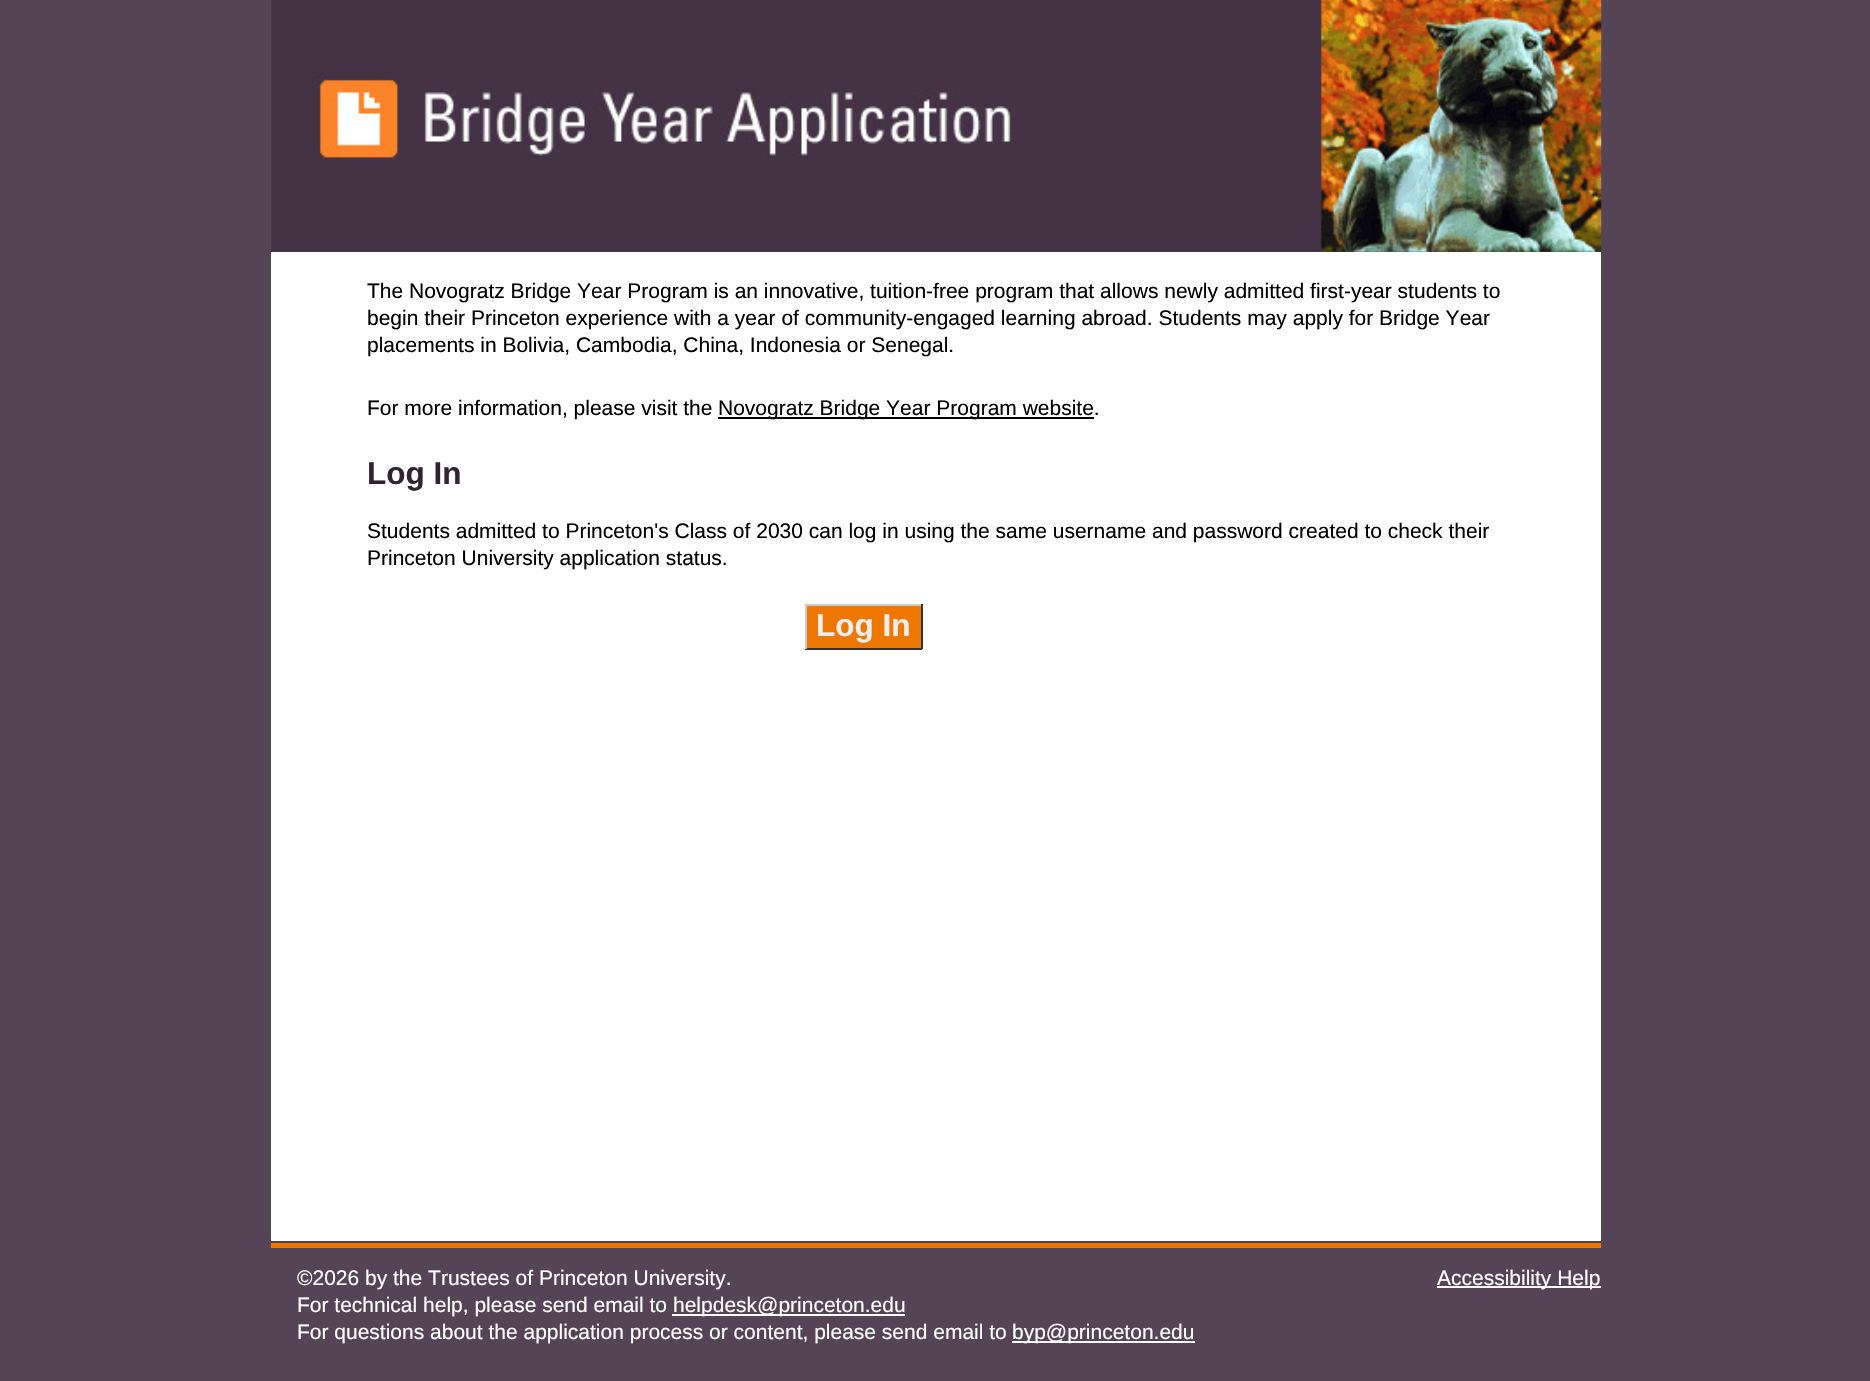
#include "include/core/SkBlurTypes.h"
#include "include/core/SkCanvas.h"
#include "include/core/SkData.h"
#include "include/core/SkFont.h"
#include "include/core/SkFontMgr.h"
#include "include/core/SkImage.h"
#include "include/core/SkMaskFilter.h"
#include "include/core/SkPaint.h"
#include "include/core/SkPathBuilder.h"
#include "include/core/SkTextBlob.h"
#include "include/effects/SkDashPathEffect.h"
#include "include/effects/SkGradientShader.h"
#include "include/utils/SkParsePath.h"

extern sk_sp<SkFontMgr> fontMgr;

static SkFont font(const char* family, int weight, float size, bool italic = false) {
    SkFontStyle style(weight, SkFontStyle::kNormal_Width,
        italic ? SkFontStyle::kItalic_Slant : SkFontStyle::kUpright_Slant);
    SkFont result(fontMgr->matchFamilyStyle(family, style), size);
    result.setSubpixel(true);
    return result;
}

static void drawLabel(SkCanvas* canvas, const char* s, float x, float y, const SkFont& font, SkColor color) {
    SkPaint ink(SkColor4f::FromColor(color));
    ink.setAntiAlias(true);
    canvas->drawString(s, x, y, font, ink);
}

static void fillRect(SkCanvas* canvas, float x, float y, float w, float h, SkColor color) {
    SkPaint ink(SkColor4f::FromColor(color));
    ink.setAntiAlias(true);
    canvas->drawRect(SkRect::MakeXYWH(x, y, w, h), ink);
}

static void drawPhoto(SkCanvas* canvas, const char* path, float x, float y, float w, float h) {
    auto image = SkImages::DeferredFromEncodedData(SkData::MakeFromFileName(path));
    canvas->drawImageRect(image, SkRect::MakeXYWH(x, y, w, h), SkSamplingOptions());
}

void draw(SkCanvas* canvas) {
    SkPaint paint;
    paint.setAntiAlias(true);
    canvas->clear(0xFF554455);
    drawPhoto(canvas, "assets/img1.png", 271, 0, 1331, 252);
    fillRect(canvas, 271, 252, 1330, 989, 0xFFFFFFFF);
    SkFont font1 = font("Liberation Sans", 400, 21);
    drawLabel(canvas, "The Novogratz Bridge Year Program is an innovative, tuition-free program that allows newly admitted first-year students to", 367, 298, font1, 0xFF000000);
    drawLabel(canvas, "begin their Princeton experience with a year of community-engaged learning abroad. Students may apply for Bridge Year", 367, 325, font1, 0xFF000000);
    drawLabel(canvas, "placements in Bolivia, Cambodia, China, Indonesia or Senegal.", 367, 352, font1, 0xFF000000);
    drawLabel(canvas, "For more information, please visit the", 367, 415, font1, 0xFF000000);
    fillRect(canvas, 718, 417, 376, 2, 0xFF000000);
    drawLabel(canvas, "Novogratz Bridge Year Program website.", 718, 415, font1, 0xFF000000);
    SkFont font2 = font("Liberation Sans", 700, 31.5f);
    drawLabel(canvas, "Log In", 367, 484, font2, 0xFF332233);
    drawLabel(canvas, "Students admitted to Princeton's Class of 2030 can log in using the same username and password created to check their", 367, 538, font1, 0xFF000000);
    drawLabel(canvas, "Princeton University application status.", 367, 565, font1, 0xFF000000);
    fillRect(canvas, 807, 606, 114, 42, 0xFFEE7700);
    drawLabel(canvas, "Log In", 816, 636, font2, 0xFFEEEEEE);
    fillRect(canvas, 805, 604, 117, 2, 0xFFCCCCCC);
    fillRect(canvas, 921, 604, 2, 45, 0xFF333333);
    fillRect(canvas, 805, 648, 117, 2, 0xFF333333);
    fillRect(canvas, 805, 604, 2, 45, 0xFFCCCCCC);
    fillRect(canvas, 271, 1243, 1330, 5, 0xFFEE7700);
    drawLabel(canvas, "©2026 by the Trustees of Princeton University.", 297, 1285, font1, 0xFFFFFFFF);
    drawLabel(canvas, "For technical help, please send email to", 297, 1312, font1, 0xFFFFFFFF);
    fillRect(canvas, 672, 1314, 233, 2, 0xFFFFFFFF);
    drawLabel(canvas, "helpdesk@princeton.edu", 673, 1312, font1, 0xFFFFFFFF);
    drawLabel(canvas, "For questions about the application process or content, please send email to", 297, 1339, font1, 0xFFFFFFFF);
    fillRect(canvas, 1012, 1341, 183, 2, 0xFFFFFFFF);
    drawLabel(canvas, "byp@princeton.edu", 1012, 1339, font1, 0xFFFFFFFF);
    fillRect(canvas, 1437, 1286, 164, 2, 0xFFFFFFFF);
    drawLabel(canvas, "Accessibility Help", 1437, 1285, font1, 0xFFFFFFFF);
}
